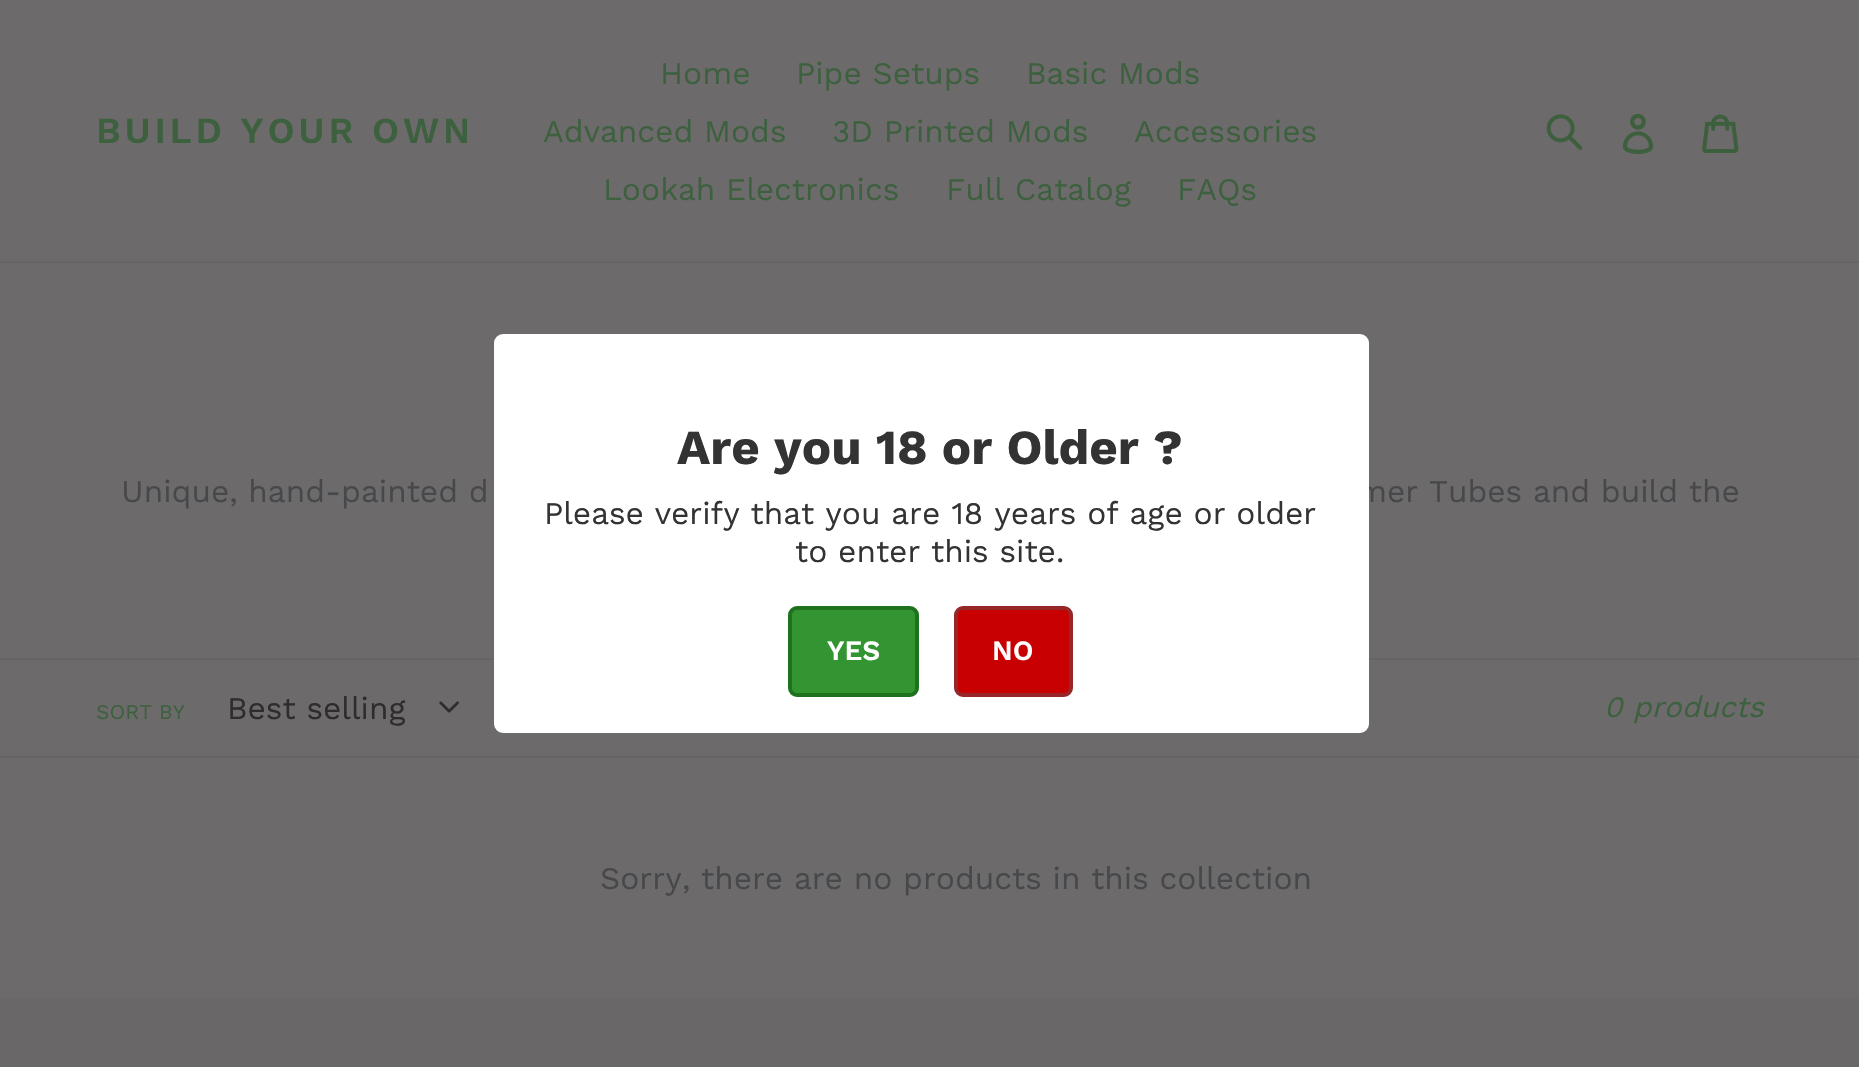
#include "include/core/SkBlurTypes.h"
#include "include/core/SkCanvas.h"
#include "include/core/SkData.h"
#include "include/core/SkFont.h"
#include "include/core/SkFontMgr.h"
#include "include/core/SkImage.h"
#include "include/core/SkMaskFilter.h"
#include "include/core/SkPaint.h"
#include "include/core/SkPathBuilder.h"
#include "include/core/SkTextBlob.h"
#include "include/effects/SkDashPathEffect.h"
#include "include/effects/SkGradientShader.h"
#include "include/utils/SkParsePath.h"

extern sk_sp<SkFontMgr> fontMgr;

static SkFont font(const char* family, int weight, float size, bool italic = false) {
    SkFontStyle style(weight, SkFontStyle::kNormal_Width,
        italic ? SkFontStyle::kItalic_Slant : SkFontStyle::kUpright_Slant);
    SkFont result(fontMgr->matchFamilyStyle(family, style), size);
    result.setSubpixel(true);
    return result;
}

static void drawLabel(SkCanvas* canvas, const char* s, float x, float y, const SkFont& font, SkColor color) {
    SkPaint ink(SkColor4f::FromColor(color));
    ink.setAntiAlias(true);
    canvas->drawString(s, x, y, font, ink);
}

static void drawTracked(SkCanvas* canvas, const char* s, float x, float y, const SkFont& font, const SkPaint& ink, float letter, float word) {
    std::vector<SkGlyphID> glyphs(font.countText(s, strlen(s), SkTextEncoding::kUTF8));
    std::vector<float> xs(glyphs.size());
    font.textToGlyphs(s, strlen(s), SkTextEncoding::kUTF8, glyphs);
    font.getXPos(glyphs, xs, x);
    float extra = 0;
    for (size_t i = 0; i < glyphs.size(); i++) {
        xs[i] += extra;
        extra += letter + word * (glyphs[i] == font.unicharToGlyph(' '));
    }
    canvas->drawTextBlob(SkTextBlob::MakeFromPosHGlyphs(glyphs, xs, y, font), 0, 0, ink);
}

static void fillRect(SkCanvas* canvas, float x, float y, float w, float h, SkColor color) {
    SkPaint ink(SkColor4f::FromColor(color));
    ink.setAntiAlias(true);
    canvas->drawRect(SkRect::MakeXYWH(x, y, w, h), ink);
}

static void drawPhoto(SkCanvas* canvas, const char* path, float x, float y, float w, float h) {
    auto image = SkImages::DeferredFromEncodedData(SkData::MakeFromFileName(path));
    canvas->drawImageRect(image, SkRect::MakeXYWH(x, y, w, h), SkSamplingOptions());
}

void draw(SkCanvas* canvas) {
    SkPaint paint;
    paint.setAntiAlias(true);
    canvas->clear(0xFF6C6A6A);
    fillRect(canvas, 0, 261, 1859, 2, 0xFF666465);
    SkFont font1 = font("Work Sans", 600, 36.75f);
    paint.setColor(0xFF3D603F);
    drawTracked(canvas, "BUILD YOUR OWN", 96, 143, font1, paint, 3.75f, 0);
    SkFont font2 = font("Work Sans", 400, 31.5f);
    drawLabel(canvas, "Home", 660, 84, font2, 0xFF3D603F);
    drawLabel(canvas, "Pipe Setups", 796, 84, font2, 0xFF3D603F);
    drawLabel(canvas, "Basic Mods", 1026, 84, font2, 0xFF3D603F);
    drawLabel(canvas, "Advanced Mods", 543, 142, font2, 0xFF3D603F);
    drawLabel(canvas, "3D Printed Mods", 832, 142, font2, 0xFF3D603F);
    drawLabel(canvas, "Accessories", 1134, 142, font2, 0xFF3D603F);
    drawLabel(canvas, "Lookah Electronics", 603, 200, font2, 0xFF3D603F);
    drawLabel(canvas, "Full Catalog", 946, 200, font2, 0xFF3D603F);
    drawLabel(canvas, "FAQs", 1177, 200, font2, 0xFF3D603F);
    drawPhoto(canvas, "assets/img1.png", 1546, 114, 37, 36);
    drawPhoto(canvas, "assets/img2.png", 1622, 114, 32, 40);
    drawPhoto(canvas, "assets/img3.png", 1702, 114, 37, 39);
    drawLabel(canvas, "mer Tubes and build the", 1357, 502, font2, 0xFF47484B);
    fillRect(canvas, 0, 658, 1859, 2, 0xFF666465);
    paint.setColor(0xFFFFFFFF);
    canvas->drawRoundRect(SkRect::MakeXYWH(495, 335, 873, 397), 8, 8, paint);
    paint.setStroke(true);
    paint.setStrokeWidth(2);
    canvas->drawRoundRect(SkRect::MakeXYWH(495, 335, 873, 397), 8, 8, paint);
    SkFont font3 = font("Work Sans", 700, 49);
    drawLabel(canvas, "Are you 18 or Older ?", 677, 464, font3, 0xFF333333);
    drawLabel(canvas, "Please verify that you are 18 years of age or older", 544, 524, font2, 0xFF333333);
    drawLabel(canvas, "to enter this site.", 795, 562, font2, 0xFF333333);
    paint.setStroke(false);
    paint.setColor(0xFF339532);
    canvas->drawRoundRect(SkRect::MakeXYWH(790, 608, 127, 87), 7, 7, paint);
    paint.setStroke(true);
    paint.setStrokeWidth(4);
    paint.setColor(0xFF1E711D);
    canvas->drawRoundRect(SkRect::MakeXYWH(790, 608, 127, 87), 7, 7, paint);
    SkFont font4 = font("Work Sans", 600, 28);
    drawLabel(canvas, "YES", 827, 660, font4, 0xFFFFFFFF);
    paint.setStroke(false);
    paint.setColor(0xFFC80002);
    canvas->drawRoundRect(SkRect::MakeXYWH(956, 608, 115, 87), 7, 7, paint);
    paint.setStroke(true);
    paint.setColor(0xFF962627);
    canvas->drawRoundRect(SkRect::MakeXYWH(956, 608, 115, 87), 7, 7, paint);
    drawLabel(canvas, "NO", 992, 660, font4, 0xFFFFFFFF);
    drawLabel(canvas, "Unique, hand-painted d", 121, 502, font2, 0xFF47484B);
    fillRect(canvas, 0, 756, 1859, 2, 0xFF666465);
    SkFont font5 = font("Work Sans", 400, 21);
    drawLabel(canvas, "SORT BY", 96, 719, font5, 0xFF3D603F);
    drawLabel(canvas, "Best selling", 227, 719, font2, 0xFF2E2C2C);
    drawPhoto(canvas, "assets/img4.png", 439, 701, 20, 12);
    SkFont font6 = font("Work Sans", 400, 29.75f, true);
    drawLabel(canvas, "0 products", 1604, 717, font6, 0xFF3D603F);
    drawLabel(canvas, "Sorry, there are no products in this collection", 600, 889, font2, 0xFF47484B);
    fillRect(canvas, 0, 998, 1859, 69, 0xFF696767);
}
